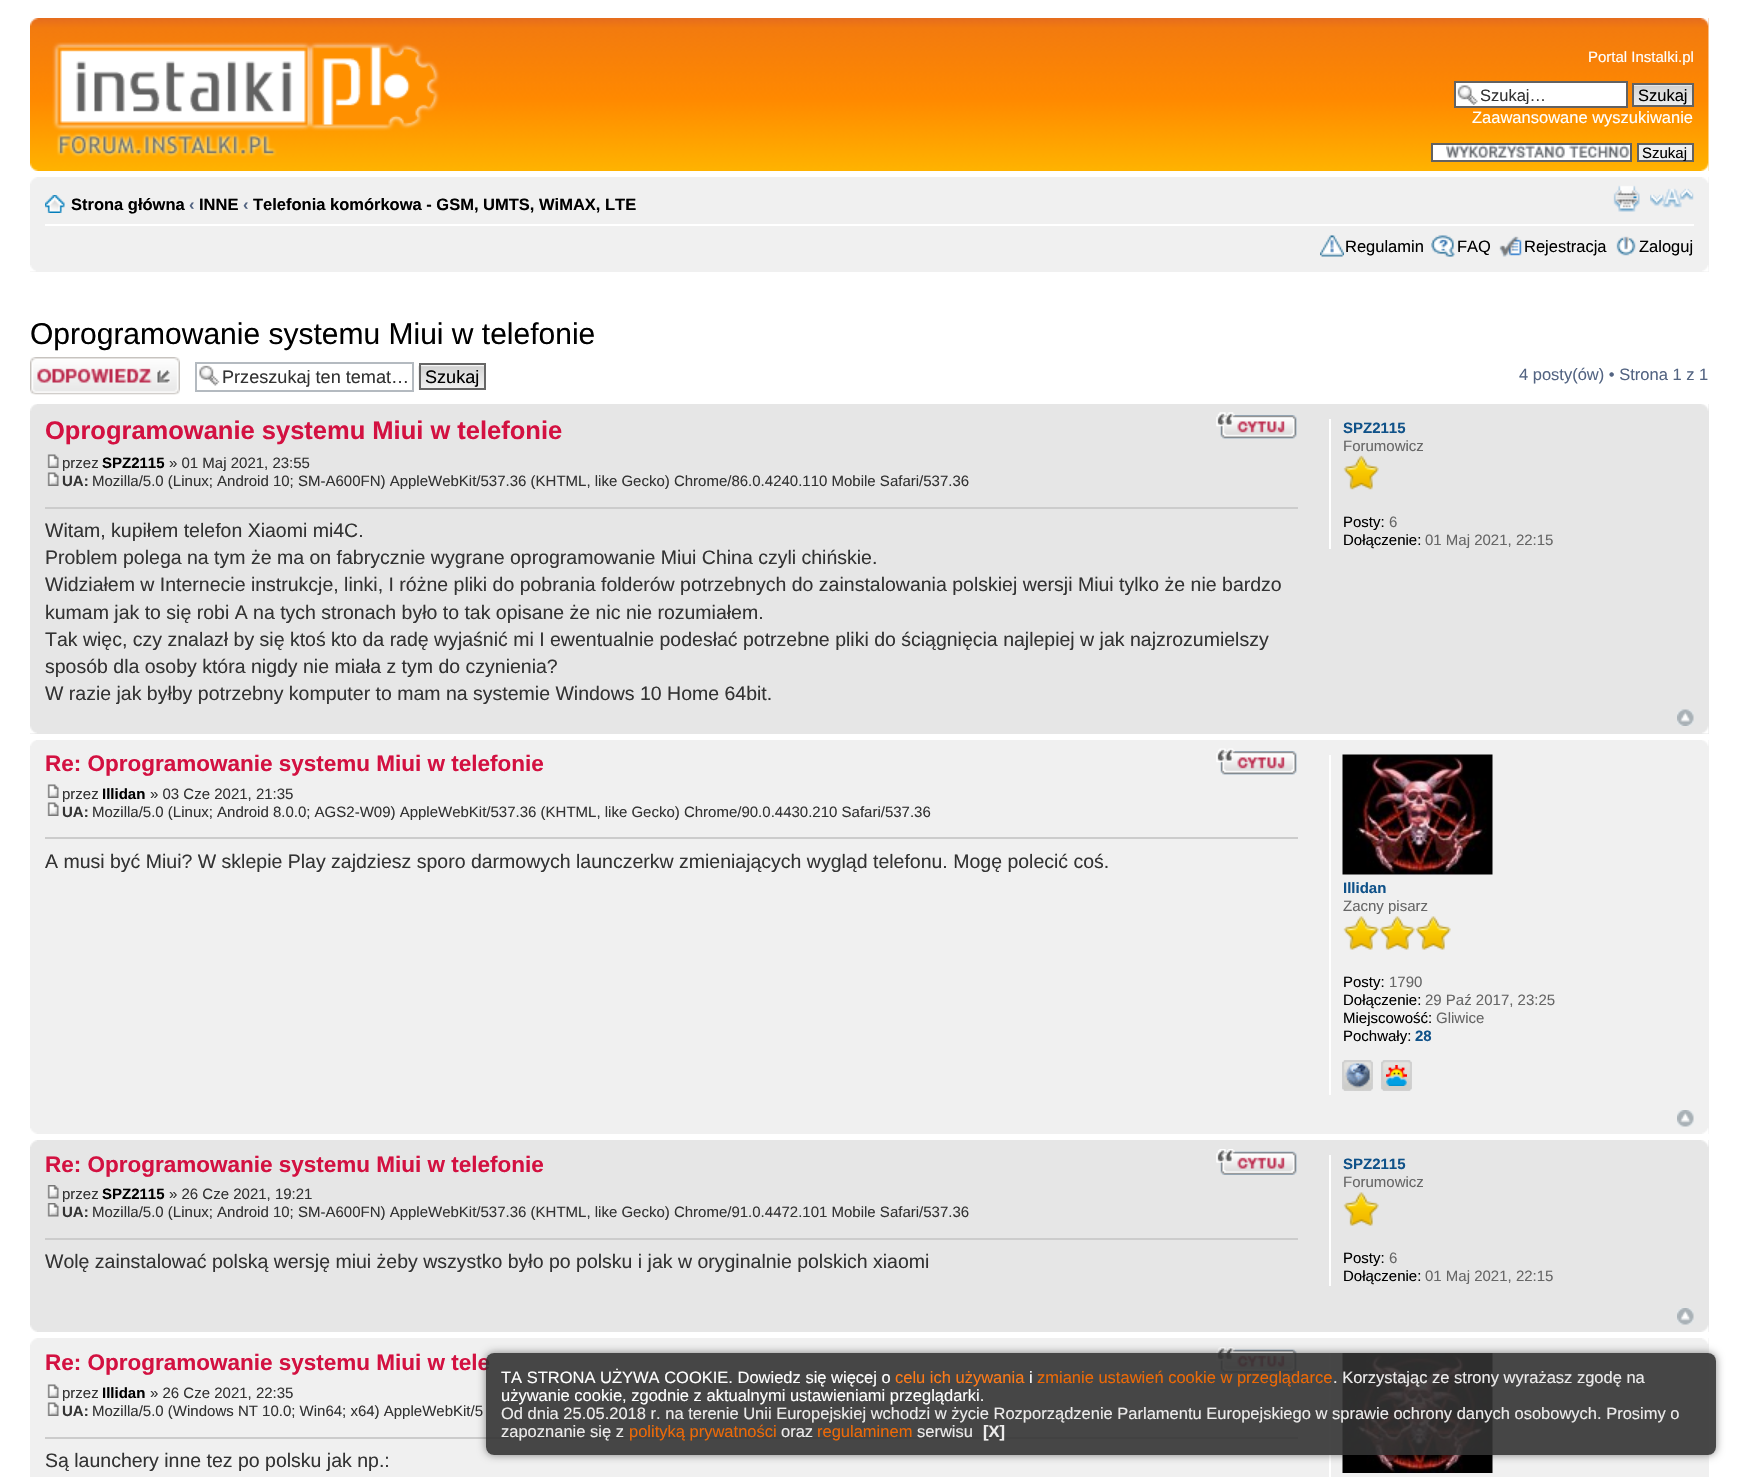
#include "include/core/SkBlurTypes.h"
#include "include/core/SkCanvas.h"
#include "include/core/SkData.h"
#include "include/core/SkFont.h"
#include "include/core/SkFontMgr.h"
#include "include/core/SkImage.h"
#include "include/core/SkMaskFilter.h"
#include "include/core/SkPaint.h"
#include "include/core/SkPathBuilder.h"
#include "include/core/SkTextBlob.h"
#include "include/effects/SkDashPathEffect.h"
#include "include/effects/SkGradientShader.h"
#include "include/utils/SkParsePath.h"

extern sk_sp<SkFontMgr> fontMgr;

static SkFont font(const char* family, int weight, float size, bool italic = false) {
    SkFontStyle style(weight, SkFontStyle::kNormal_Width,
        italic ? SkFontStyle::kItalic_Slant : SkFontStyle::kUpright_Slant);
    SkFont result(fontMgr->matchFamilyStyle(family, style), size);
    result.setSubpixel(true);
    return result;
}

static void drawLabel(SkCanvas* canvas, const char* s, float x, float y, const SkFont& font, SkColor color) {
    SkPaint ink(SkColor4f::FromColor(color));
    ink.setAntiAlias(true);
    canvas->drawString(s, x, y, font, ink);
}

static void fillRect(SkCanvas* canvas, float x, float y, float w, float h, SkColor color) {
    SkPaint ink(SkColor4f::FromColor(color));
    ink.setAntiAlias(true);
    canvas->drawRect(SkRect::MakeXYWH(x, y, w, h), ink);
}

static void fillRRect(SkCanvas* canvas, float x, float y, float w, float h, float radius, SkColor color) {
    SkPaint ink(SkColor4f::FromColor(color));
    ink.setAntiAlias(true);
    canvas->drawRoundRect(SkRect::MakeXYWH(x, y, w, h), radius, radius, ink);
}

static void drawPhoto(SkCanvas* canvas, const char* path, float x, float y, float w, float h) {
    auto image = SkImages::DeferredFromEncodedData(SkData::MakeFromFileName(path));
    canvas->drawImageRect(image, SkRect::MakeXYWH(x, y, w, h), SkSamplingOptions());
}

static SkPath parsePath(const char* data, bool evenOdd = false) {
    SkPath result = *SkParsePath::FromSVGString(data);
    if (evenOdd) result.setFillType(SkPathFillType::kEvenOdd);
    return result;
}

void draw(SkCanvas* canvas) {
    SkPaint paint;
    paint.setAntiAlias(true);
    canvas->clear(0xFFFFFFFF);
    drawPhoto(canvas, "assets/img1.png", 30, 18, 1679, 153);
    drawPhoto(canvas, "assets/img2.png", 30, 18, 9, 8);
    drawPhoto(canvas, "assets/img3.png", 1700, 18, 9, 8);
    drawPhoto(canvas, "assets/img4.png", 52, 42, 388, 115);
    SkFont font1 = font("Liberation Sans", 400, 15);
    drawLabel(canvas, "Portal Instalki.pl", 1588, 62, font1, 0xFFFFFFFF);
    fillRect(canvas, 1456, 83, 170, 23, 0xFFFFFFFF);
    drawPhoto(canvas, "assets/img5.png", 1457, 85, 21, 20);
    paint.setStroke(true);
    paint.setStrokeWidth(2);
    paint.setColor(0xFF626262);
    canvas->drawRect(SkRect::MakeXYWH(1455, 82, 172, 25), paint);
    canvas->save();
    canvas->clipRect(SkRect::MakeXYWH(1481, 86, 142, 18));
    SkFont font2 = font("Liberation Sans", 400, 16.5f);
    drawLabel(canvas, "Szukaj…", 1480, 101, font2, 0xFF333333);
    canvas->restore();
    drawPhoto(canvas, "assets/img6.png", 1634, 85, 58, 20);
    canvas->drawRect(SkRect::MakeXYWH(1633, 84, 60, 22), paint);
    drawLabel(canvas, "Szukaj", 1638, 101, font2, 0xFF000000);
    drawLabel(canvas, "Zaawansowane wyszukiwanie", 1472, 123, font2, 0xFFFFFFFF);
    fillRect(canvas, 1433, 145, 197, 15, 0xFFFFFFFF);
    drawPhoto(canvas, "assets/img7.png", 1446, 145, 184, 13);
    canvas->drawRect(SkRect::MakeXYWH(1432, 144, 199, 17), paint);
    paint.setStroke(false);
    paint.setColor(0xFFEFEFEF);
    canvas->drawRect(SkRect::MakeXYWH(1638, 144, 55, 17), paint);
    paint.setStroke(true);
    paint.setColor(0xFF626262);
    canvas->drawRect(SkRect::MakeXYWH(1638, 144, 55, 17), paint);
    drawLabel(canvas, "Szukaj", 1642, 158, font1, 0xFF000000);
    drawPhoto(canvas, "assets/img8.png", 30, 163, 8, 8);
    drawPhoto(canvas, "assets/img9.png", 1700, 163, 9, 8);
    fillRect(canvas, 30, 177, 1679, 95, 0xFFF0F0F0);
    drawPhoto(canvas, "assets/img10.png", 30, 177, 7, 7);
    drawPhoto(canvas, "assets/img11.png", 1702, 177, 7, 6);
    fillRect(canvas, 45, 224, 1649, 2, 0xFFFFFFFF);
    drawPhoto(canvas, "assets/img12.png", 45, 195, 20, 18);
    SkFont font3 = font("Liberation Sans", 700, 16.5f);
    drawLabel(canvas, "Strona główna", 71, 210, font3, 0xFF000000);
    drawLabel(canvas, "‹", 189, 210, font3, 0xFF536482);
    drawLabel(canvas, "INNE", 199, 210, font3, 0xFF000000);
    drawLabel(canvas, "‹", 243, 210, font3, 0xFF536482);
    drawLabel(canvas, "Telefonia komórkowa - GSM, UMTS, WiMAX, LTE", 253, 210, font3, 0xFF000000);
    drawPhoto(canvas, "assets/img13.png", 1613, 185, 27, 27);
    drawPhoto(canvas, "assets/img14.png", 1650, 188, 44, 20);
    drawPhoto(canvas, "assets/img15.png", 1320, 235, 24, 22);
    drawLabel(canvas, "Regulamin", 1345, 252, font2, 0xFF000000);
    drawPhoto(canvas, "assets/img16.png", 1431, 235, 24, 22);
    drawLabel(canvas, "FAQ", 1457, 252, font2, 0xFF000000);
    drawPhoto(canvas, "assets/img17.png", 1499, 236, 23, 21);
    drawLabel(canvas, "Rejestracja", 1524, 252, font2, 0xFF000000);
    drawPhoto(canvas, "assets/img18.png", 1616, 236, 20, 20);
    drawLabel(canvas, "Zaloguj", 1639, 252, font2, 0xFF000000);
    drawPhoto(canvas, "assets/img19.png", 30, 265, 6, 7);
    drawPhoto(canvas, "assets/img20.png", 1702, 265, 7, 7);
    SkFont font4 = font("Liberation Sans", 400, 30);
    drawLabel(canvas, "Oprogramowanie systemu Miui w telefonie", 30, 344, font4, 0xFF000000);
    drawPhoto(canvas, "assets/img21.png", 30, 357, 150, 38);
    drawPhoto(canvas, "assets/img22.png", 199, 365, 21, 21);
    paint.setColor(0xFFB4BAC0);
    canvas->drawRect(SkRect::MakeXYWH(196, 363, 217, 28), paint);
    SkFont font5 = font("Liberation Sans", 400, 18.1f);
    drawLabel(canvas, "Przeszukaj ten temat…", 222, 383, font5, 0xFF333333);
    drawPhoto(canvas, "assets/img23.png", 418, 365, 66, 25);
    paint.setColor(0xFF666666);
    canvas->drawRect(SkRect::MakeXYWH(420, 364, 65, 25), paint);
    drawLabel(canvas, "Szukaj", 425, 383, font5, 0xFF000000);
    drawLabel(canvas, "4 posty(ów) • Strona 1 z 1", 1519, 380, font2, 0xFF536482);
    fillRect(canvas, 30, 404, 1679, 330, 0xFFE6E6E6);
    drawPhoto(canvas, "assets/img24.png", 30, 404, 7, 7);
    drawPhoto(canvas, "assets/img25.png", 1701, 404, 8, 7);
    SkFont font6 = font("Liberation Sans", 700, 25.5f);
    drawLabel(canvas, "Oprogramowanie systemu Miui w telefonie", 45, 439, font6, 0xFFD31141);
    drawPhoto(canvas, "assets/img26.png", 1216, 412, 81, 27);
    drawPhoto(canvas, "assets/img27.png", 1216, 412, 81, 27);
    drawPhoto(canvas, "assets/img28.png", 47, 454, 12, 14);
    drawLabel(canvas, "przez", 62, 468, font1, 0xFF333333);
    SkFont font7 = font("Liberation Sans", 700, 15);
    drawLabel(canvas, "SPZ2115", 102, 468, font7, 0xFF000000);
    drawLabel(canvas, "» 01 Maj 2021, 23:55", 169, 468, font1, 0xFF333333);
    drawPhoto(canvas, "assets/img28.png", 47, 472, 12, 14);
    drawLabel(canvas, "UA:", 62, 486, font7, 0xFF333333);
    drawLabel(canvas, "Mozilla/5.0 (Linux; Android 10; SM-A600FN) AppleWebKit/537.36 (KHTML, like Gecko) Chrome/86.0.4240.110 Mobile Safari/537.36", 92, 486, font1, 0xFF333333);
    fillRect(canvas, 45, 507, 1253, 2, 0xFFCCCCCC);
    SkFont font8 = font("Liberation Sans", 400, 19.5f);
    drawLabel(canvas, "Witam, kupiłem telefon Xiaomi mi4C.", 45, 537, font8, 0xFF333333);
    drawLabel(canvas, "Problem polega na tym że ma on fabrycznie wygrane oprogramowanie Miui China czyli chińskie.", 45, 564, font8, 0xFF333333);
    drawLabel(canvas, "Widziałem w Internecie instrukcje, linki, I różne pliki do pobrania folderów potrzebnych do zainstalowania polskiej wersji Miui tylko że nie bardzo", 45, 591, font8, 0xFF333333);
    drawLabel(canvas, "kumam jak to się robi A na tych stronach było to tak opisane że nic nie rozumiałem.", 45, 619, font8, 0xFF333333);
    drawLabel(canvas, "Tak więc, czy znalazł by się ktoś kto da radę wyjaśnić mi I ewentualnie podesłać potrzebne pliki do ściągnięcia najlepiej w jak najzrozumielszy", 45, 646, font8, 0xFF333333);
    drawLabel(canvas, "sposób dla osoby która nigdy nie miała z tym do czynienia?", 45, 673, font8, 0xFF333333);
    drawLabel(canvas, "W razie jak byłby potrzebny komputer to mam na systemie Windows 10 Home 64bit.", 45, 700, font8, 0xFF333333);
    fillRect(canvas, 1329, 419, 2, 130, 0xFFFFFFFF);
    drawLabel(canvas, "SPZ2115", 1343, 433, font7, 0xFF105289);
    drawLabel(canvas, "Forumowicz", 1343, 451, font1, 0xFF666666);
    drawPhoto(canvas, "assets/img29.png", 1343, 455, 36, 35);
    drawLabel(canvas, "Posty:", 1343, 527, font1, 0xFF000000);
    drawLabel(canvas, "6", 1389, 527, font1, 0xFF666666);
    drawLabel(canvas, "Dołączenie:", 1343, 545, font1, 0xFF000000);
    drawLabel(canvas, "01 Maj 2021, 22:15", 1425, 545, font1, 0xFF666666);
    drawPhoto(canvas, "assets/img30.png", 1677, 709, 17, 17);
    drawPhoto(canvas, "assets/img31.png", 30, 726, 7, 8);
    drawPhoto(canvas, "assets/img32.png", 1702, 726, 7, 8);
    fillRect(canvas, 30, 740, 1679, 394, 0xFFF0F0F0);
    drawPhoto(canvas, "assets/img33.png", 30, 740, 6, 6);
    drawPhoto(canvas, "assets/img34.png", 1702, 740, 7, 6);
    SkFont font9 = font("Liberation Sans", 700, 22.5f);
    drawLabel(canvas, "Re: Oprogramowanie systemu Miui w telefonie", 45, 771, font9, 0xFFD31141);
    drawPhoto(canvas, "assets/img35.png", 1216, 748, 81, 27);
    drawPhoto(canvas, "assets/img36.png", 1216, 749, 81, 26);
    drawPhoto(canvas, "assets/img37.png", 47, 784, 12, 14);
    drawLabel(canvas, "przez", 62, 799, font1, 0xFF333333);
    drawLabel(canvas, "Illidan", 102, 799, font7, 0xFF000000);
    drawLabel(canvas, "» 03 Cze 2021, 21:35", 150, 799, font1, 0xFF333333);
    drawPhoto(canvas, "assets/img37.png", 47, 802, 12, 14);
    drawLabel(canvas, "UA:", 62, 817, font7, 0xFF333333);
    drawLabel(canvas, "Mozilla/5.0 (Linux; Android 8.0.0; AGS2-W09) AppleWebKit/537.36 (KHTML, like Gecko) Chrome/90.0.4430.210 Safari/537.36", 92, 817, font1, 0xFF333333);
    fillRect(canvas, 45, 837, 1253, 2, 0xFFCCCCCC);
    drawLabel(canvas, "A musi być Miui? W sklepie Play zajdziesz sporo darmowych launczerkw zmieniających wygląd telefonu. Mogę polecić coś.", 45, 868, font8, 0xFF333333);
    fillRect(canvas, 1329, 755, 2, 340, 0xFFFFFFFF);
    drawPhoto(canvas, "assets/img38.png", 1342, 754, 151, 121);
    drawLabel(canvas, "Illidan", 1343, 893, font7, 0xFF105289);
    drawLabel(canvas, "Zacny pisarz", 1343, 911, font1, 0xFF666666);
    drawPhoto(canvas, "assets/img39.png", 1343, 916, 108, 34);
    drawLabel(canvas, "Posty:", 1343, 987, font1, 0xFF000000);
    drawLabel(canvas, "1790", 1389, 987, font1, 0xFF666666);
    drawLabel(canvas, "Dołączenie:", 1343, 1005, font1, 0xFF000000);
    drawLabel(canvas, "29 Paź 2017, 23:25", 1425, 1005, font1, 0xFF666666);
    drawLabel(canvas, "Miejscowość:", 1343, 1023, font1, 0xFF000000);
    drawLabel(canvas, "Gliwice", 1436, 1023, font1, 0xFF666666);
    drawLabel(canvas, "Pochwały:", 1343, 1041, font1, 0xFF000000);
    drawLabel(canvas, "28", 1415, 1041, font7, 0xFF105289);
    drawPhoto(canvas, "assets/img40.png", 1342, 1060, 31, 31);
    drawPhoto(canvas, "assets/img41.png", 1342, 1060, 31, 31);
    drawPhoto(canvas, "assets/img42.png", 1381, 1060, 31, 31);
    drawPhoto(canvas, "assets/img43.png", 1381, 1060, 31, 31);
    drawPhoto(canvas, "assets/img44.png", 1386, 1065, 21, 21);
    drawPhoto(canvas, "assets/img45.png", 1677, 1110, 17, 17);
    drawPhoto(canvas, "assets/img46.png", 30, 1128, 7, 6);
    drawPhoto(canvas, "assets/img47.png", 1702, 1128, 7, 6);
    fillRect(canvas, 30, 1140, 1679, 192, 0xFFE6E6E6);
    drawPhoto(canvas, "assets/img48.png", 30, 1140, 7, 7);
    drawPhoto(canvas, "assets/img49.png", 1701, 1140, 8, 7);
    drawLabel(canvas, "Re: Oprogramowanie systemu Miui w telefonie", 45, 1172, font9, 0xFFD31141);
    drawPhoto(canvas, "assets/img50.png", 1216, 1149, 81, 26);
    drawPhoto(canvas, "assets/img51.png", 1216, 1149, 81, 26);
    drawPhoto(canvas, "assets/img52.png", 47, 1185, 12, 14);
    drawLabel(canvas, "przez", 62, 1199, font1, 0xFF333333);
    drawLabel(canvas, "SPZ2115", 102, 1199, font7, 0xFF000000);
    drawLabel(canvas, "» 26 Cze 2021, 19:21", 169, 1199, font1, 0xFF333333);
    drawPhoto(canvas, "assets/img52.png", 47, 1203, 12, 14);
    drawLabel(canvas, "UA:", 62, 1217, font7, 0xFF333333);
    drawLabel(canvas, "Mozilla/5.0 (Linux; Android 10; SM-A600FN) AppleWebKit/537.36 (KHTML, like Gecko) Chrome/91.0.4472.101 Mobile Safari/537.36", 92, 1217, font1, 0xFF333333);
    fillRect(canvas, 45, 1238, 1253, 2, 0xFFCCCCCC);
    drawLabel(canvas, "Wolę zainstalować polską wersję miui żeby wszystko było po polsku i jak w oryginalnie polskich xiaomi", 45, 1268, font8, 0xFF333333);
    fillRect(canvas, 1329, 1155, 2, 131, 0xFFFFFFFF);
    drawLabel(canvas, "SPZ2115", 1343, 1169, font7, 0xFF105289);
    drawLabel(canvas, "Forumowicz", 1343, 1187, font1, 0xFF666666);
    drawPhoto(canvas, "assets/img53.png", 1343, 1192, 36, 34);
    drawLabel(canvas, "Posty:", 1343, 1263, font1, 0xFF000000);
    drawLabel(canvas, "6", 1389, 1263, font1, 0xFF666666);
    drawLabel(canvas, "Dołączenie:", 1343, 1281, font1, 0xFF000000);
    drawLabel(canvas, "01 Maj 2021, 22:15", 1425, 1281, font1, 0xFF666666);
    drawPhoto(canvas, "assets/img54.png", 1677, 1308, 17, 17);
    drawPhoto(canvas, "assets/img55.png", 30, 1325, 7, 7);
    drawPhoto(canvas, "assets/img56.png", 1701, 1325, 8, 7);
    fillRect(canvas, 30, 1338, 1679, 139, 0xFFF0F0F0);
    drawPhoto(canvas, "assets/img10.png", 30, 1338, 7, 7);
    drawPhoto(canvas, "assets/img11.png", 1702, 1338, 7, 6);
    drawLabel(canvas, "Re: Oprogramowanie systemu Miui w tele", 45, 1370, font9, 0xFFD31141);
    drawPhoto(canvas, "assets/img57.png", 1216, 1347, 81, 26);
    drawPhoto(canvas, "assets/img58.png", 1216, 1348, 81, 25);
    drawPhoto(canvas, "assets/img37.png", 47, 1384, 12, 14);
    drawLabel(canvas, "przez", 62, 1398, font1, 0xFF333333);
    drawLabel(canvas, "Illidan", 102, 1398, font7, 0xFF000000);
    drawLabel(canvas, "» 26 Cze 2021, 22:35", 150, 1398, font1, 0xFF333333);
    drawPhoto(canvas, "assets/img37.png", 47, 1402, 12, 14);
    drawLabel(canvas, "UA:", 62, 1416, font7, 0xFF333333);
    drawLabel(canvas, "Mozilla/5.0 (Windows NT 10.0; Win64; x64) AppleWebKit/5", 92, 1416, font1, 0xFF333333);
    fillRect(canvas, 45, 1437, 1253, 2, 0xFFCCCCCC);
    drawLabel(canvas, "Są launchery inne tez po polsku jak np.:", 45, 1467, font8, 0xFF333333);
    fillRect(canvas, 1329, 1353, 2, 124, 0xFFFFFFFF);
    drawPhoto(canvas, "assets/img59.png", 1342, 1353, 151, 120);
    canvas->save();
    canvas->clipPath(parsePath("M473 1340H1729V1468H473ZM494 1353H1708C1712.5 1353 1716 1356.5 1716 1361V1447C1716 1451.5 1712.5 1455 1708 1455H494C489.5 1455 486 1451.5 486 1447V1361C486 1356.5 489.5 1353 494 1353Z", true), true);
    paint.setStroke(false);
    paint.setColor(0x73000000);
    paint.setMaskFilter(SkMaskFilter::MakeBlur(kNormal_SkBlurStyle, 4));
    canvas->drawRoundRect(SkRect::MakeXYWH(486, 1353, 1230, 102), 8, 8, paint);
    paint.setMaskFilter(nullptr);
    canvas->restore();
    fillRRect(canvas, 486, 1353, 1230, 102, 8, 0xE6333333);
    drawLabel(canvas, "TA STRONA UŻYWA COOKIE. Dowiedz się więcej o", 501, 1383, font2, 0xFFFFFFFF);
    drawLabel(canvas, "celu ich używania", 895, 1383, font2, 0xFFFE7A18);
    drawLabel(canvas, "i", 1029, 1383, font2, 0xFFFFFFFF);
    drawLabel(canvas, "zmianie ustawień cookie w przeglądarce", 1037, 1383, font2, 0xFFEC6907);
    drawLabel(canvas, ". Korzystając ze strony wyrażasz zgodę na", 1333, 1383, font2, 0xFFECEBEB);
    drawLabel(canvas, "używanie cookie, zgodnie z aktualnymi ustawieniami przeglądarki.", 501, 1401, font2, 0xFFFFFFFF);
    drawLabel(canvas, "Od dnia 25.05.2018 r. na terenie Unii Europejskiej wchodzi w życie Rozporządzenie Parlamentu Europejskiego w sprawie ochrony danych osobowych. Prosimy o", 501, 1419, font2, 0xFFECEBEB);
    drawLabel(canvas, "zapoznanie się z", 501, 1437, font2, 0xFFECEBEB);
    drawLabel(canvas, "polityką prywatności", 629, 1437, font2, 0xFFEC6907);
    drawLabel(canvas, "oraz", 781, 1437, font2, 0xFFECEBEB);
    drawLabel(canvas, "regulaminem", 817, 1437, font2, 0xFFEC6907);
    drawLabel(canvas, "serwisu", 917, 1437, font2, 0xFFECEBEB);
    drawLabel(canvas, "[X]", 983, 1437, font3, 0xFFECEBEB);
}
